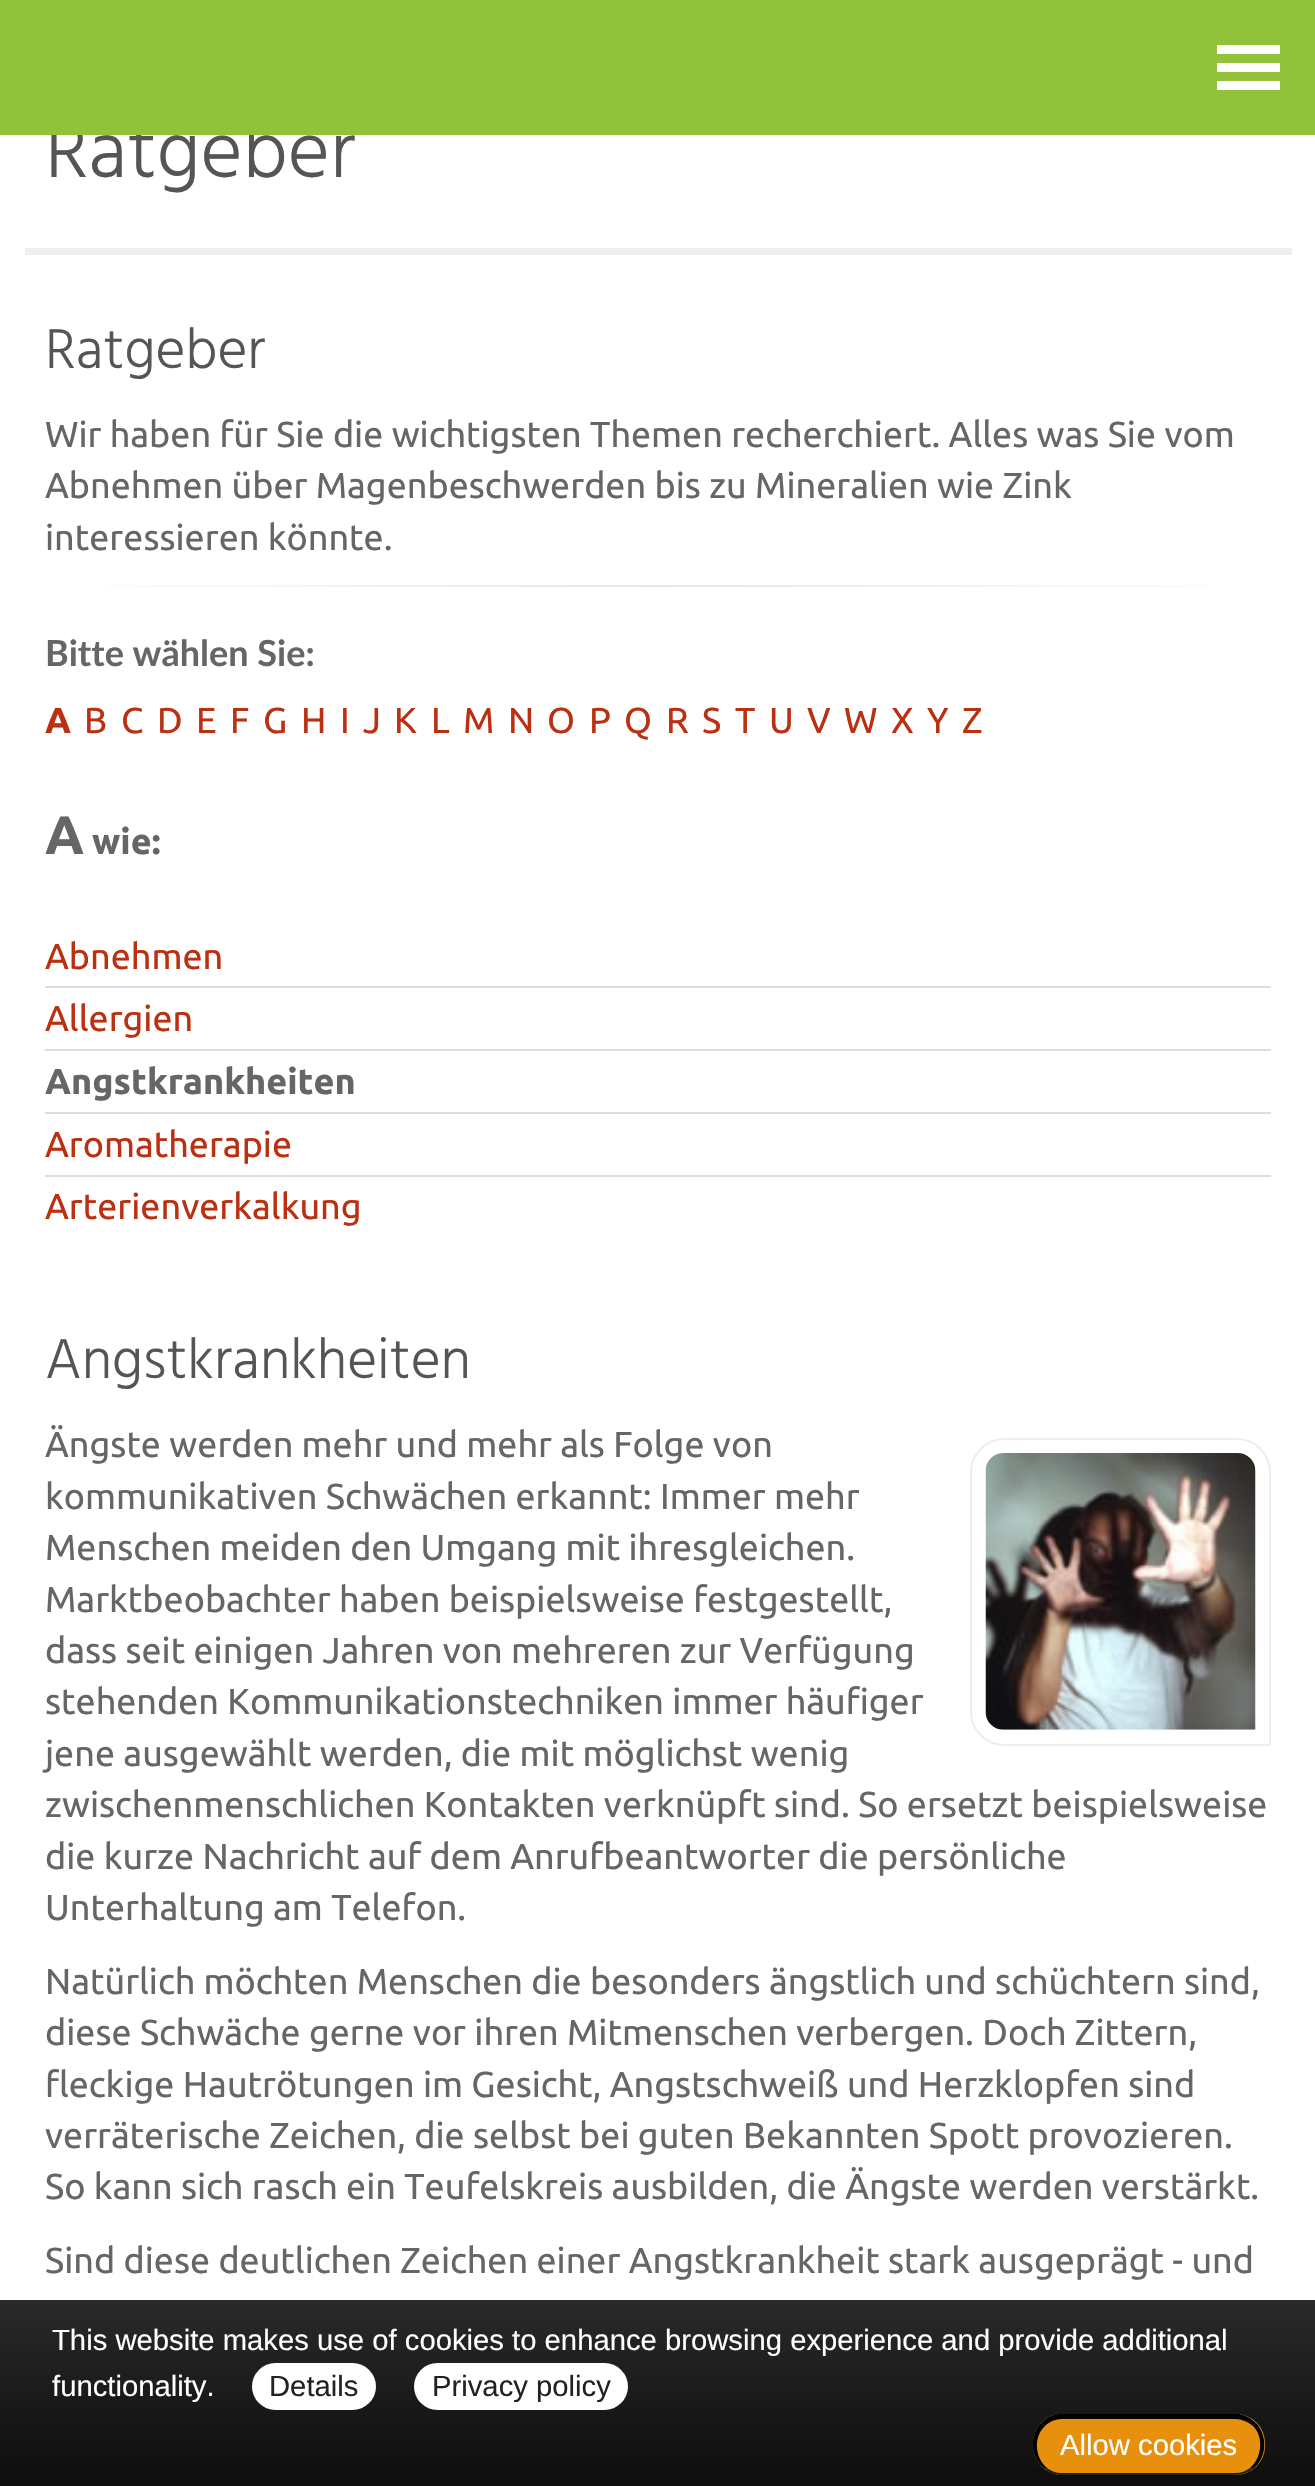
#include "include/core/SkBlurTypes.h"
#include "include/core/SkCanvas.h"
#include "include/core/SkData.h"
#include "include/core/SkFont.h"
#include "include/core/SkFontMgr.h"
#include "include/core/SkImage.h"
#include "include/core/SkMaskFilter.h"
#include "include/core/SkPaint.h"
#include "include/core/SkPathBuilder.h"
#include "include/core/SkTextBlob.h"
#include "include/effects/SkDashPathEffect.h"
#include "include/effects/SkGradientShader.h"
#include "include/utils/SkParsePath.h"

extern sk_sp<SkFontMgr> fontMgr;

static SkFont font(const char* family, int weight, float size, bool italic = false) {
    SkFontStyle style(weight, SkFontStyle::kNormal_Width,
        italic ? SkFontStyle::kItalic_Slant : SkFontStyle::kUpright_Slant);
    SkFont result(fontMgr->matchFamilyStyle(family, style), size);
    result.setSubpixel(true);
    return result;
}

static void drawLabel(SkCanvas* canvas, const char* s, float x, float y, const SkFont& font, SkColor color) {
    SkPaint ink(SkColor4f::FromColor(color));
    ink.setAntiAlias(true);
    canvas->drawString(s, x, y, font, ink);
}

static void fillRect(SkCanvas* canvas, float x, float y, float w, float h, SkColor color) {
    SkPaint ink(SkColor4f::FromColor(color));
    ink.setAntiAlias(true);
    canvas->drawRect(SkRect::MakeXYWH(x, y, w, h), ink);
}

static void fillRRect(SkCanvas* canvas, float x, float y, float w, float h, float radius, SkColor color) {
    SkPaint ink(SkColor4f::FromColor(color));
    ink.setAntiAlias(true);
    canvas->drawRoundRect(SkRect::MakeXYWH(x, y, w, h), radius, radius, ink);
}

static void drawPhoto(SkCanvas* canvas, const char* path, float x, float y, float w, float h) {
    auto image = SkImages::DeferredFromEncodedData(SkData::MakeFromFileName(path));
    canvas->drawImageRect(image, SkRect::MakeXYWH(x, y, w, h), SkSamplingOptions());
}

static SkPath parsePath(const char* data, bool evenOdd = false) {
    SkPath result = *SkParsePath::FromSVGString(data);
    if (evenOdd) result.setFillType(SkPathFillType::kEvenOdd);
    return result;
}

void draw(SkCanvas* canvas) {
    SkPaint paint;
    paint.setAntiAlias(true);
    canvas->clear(0xFFFFFFFF);
    SkFont font1 = font("Hind", 300, 81);
    drawLabel(canvas, "Ratgeber", 45, 177, font1, 0xFF555555);
    fillRect(canvas, 0, 0, 1315, 135, 0xFF92C23A);
    fillRect(canvas, 1217, 45, 63, 9, 0xFFFFFFFF);
    fillRect(canvas, 1217, 63, 63, 9, 0xFFFFFFFF);
    fillRect(canvas, 1217, 81, 63, 9, 0xFFFFFFFF);
    fillRect(canvas, 25, 248, 1267, 7, 0xFFEEEEEE);
    SkFont font2 = font("Hind", 300, 57.5f);
    drawLabel(canvas, "Ratgeber", 45, 368, font2, 0xFF555555);
    SkFont font3 = font("Ubuntu", 400, 36);
    drawLabel(canvas, "Wir haben für Sie die wichtigsten Themen recherchiert. Alles was Sie vom", 45, 447, font3, 0xFF666666);
    drawLabel(canvas, "Abnehmen über Magenbeschwerden bis zu Mineralien wie Zink", 45, 498, font3, 0xFF666666);
    drawLabel(canvas, "interessieren könnte.", 45, 550, font3, 0xFF666666);
    {
        const SkColor colors[] = {0xFFFFFFFF, 0xFFE6E6E6, 0xFFFFFFFF};
        const float stops[] = {0, 0.5f, 1};
        const SkPoint ends[] = {{45, 586}, {1271, 586}};
        paint.setShader(SkGradientShader::MakeLinear(ends, colors, stops, 3, SkTileMode::kClamp));
        paint.setAlpha(255);
    }
    canvas->drawRect(SkRect::MakeXYWH(106, 585, 1104, 2), paint);
    SkFont font4 = font("Lato", 700, 36);
    drawLabel(canvas, "Bitte wählen Sie:", 45, 666, font4, 0xFF666666);
    SkFont font5 = font("Ubuntu", 700, 36);
    drawLabel(canvas, "A", 45, 733, font5, 0xFFBA3011);
    drawLabel(canvas, "B", 84, 733, font3, 0xFFBA3011);
    drawLabel(canvas, "C", 121, 733, font3, 0xFFBA3011);
    drawLabel(canvas, "D", 157, 733, font3, 0xFFBA3011);
    drawLabel(canvas, "E", 196, 733, font3, 0xFFBA3011);
    drawLabel(canvas, "F", 230, 733, font3, 0xFFBA3011);
    drawLabel(canvas, "G", 263, 733, font3, 0xFFBA3011);
    drawLabel(canvas, "H", 301, 733, font3, 0xFFBA3011);
    drawLabel(canvas, "I", 340, 733, font3, 0xFFBA3011);
    drawLabel(canvas, "J", 363, 733, font3, 0xFFBA3011);
    drawLabel(canvas, "K", 394, 733, font3, 0xFFBA3011);
    drawLabel(canvas, "L", 431, 733, font3, 0xFFBA3011);
    drawLabel(canvas, "M", 463, 733, font3, 0xFFBA3011);
    drawLabel(canvas, "N", 508, 733, font3, 0xFFBA3011);
    drawLabel(canvas, "O", 547, 733, font3, 0xFFBA3011);
    drawLabel(canvas, "P", 589, 733, font3, 0xFFBA3011);
    drawLabel(canvas, "Q", 624, 733, font3, 0xFFBA3011);
    drawLabel(canvas, "R", 666, 733, font3, 0xFFBA3011);
    drawLabel(canvas, "S", 702, 733, font3, 0xFFBA3011);
    drawLabel(canvas, "T", 735, 733, font3, 0xFFBA3011);
    drawLabel(canvas, "U", 769, 733, font3, 0xFFBA3011);
    drawLabel(canvas, "V", 807, 733, font3, 0xFFBA3011);
    drawLabel(canvas, "W", 844, 733, font3, 0xFFBA3011);
    drawLabel(canvas, "X", 891, 733, font3, 0xFFBA3011);
    drawLabel(canvas, "Y", 927, 733, font3, 0xFFBA3011);
    drawLabel(canvas, "Z", 962, 733, font3, 0xFFBA3011);
    SkFont font6 = font("Ubuntu", 700, 54);
    drawLabel(canvas, "A", 45, 854, font6, 0xFF666666);
    drawLabel(canvas, "wie:", 92, 854, font5, 0xFF666666);
    drawLabel(canvas, "Abnehmen", 45, 969, font3, 0xFFBA3011);
    fillRect(canvas, 45, 986, 1226, 2, 0xFFDDDDDD);
    drawLabel(canvas, "Allergien", 45, 1031, font3, 0xFFBA3011);
    fillRect(canvas, 45, 1049, 1226, 2, 0xFFDDDDDD);
    drawLabel(canvas, "Angstkrankheiten", 45, 1094, font5, 0xFF666666);
    fillRect(canvas, 45, 1112, 1226, 2, 0xFFDDDDDD);
    drawLabel(canvas, "Aromatherapie", 45, 1157, font3, 0xFFBA3011);
    fillRect(canvas, 45, 1175, 1226, 2, 0xFFDDDDDD);
    drawLabel(canvas, "Arterienverkalkung", 45, 1219, font3, 0xFFBA3011);
    drawLabel(canvas, "Angstkrankheiten", 45, 1378, font2, 0xFF555555);
    drawLabel(canvas, "Ängste werden mehr und mehr als Folge von", 45, 1457, font3, 0xFF666666);
    drawLabel(canvas, "kommunikativen Schwächen erkannt: Immer mehr", 45, 1509, font3, 0xFF666666);
    drawLabel(canvas, "Menschen meiden den Umgang mit ihresgleichen.", 45, 1560, font3, 0xFF666666);
    drawLabel(canvas, "Marktbeobachter haben beispielsweise festgestellt,", 45, 1612, font3, 0xFF666666);
    drawLabel(canvas, "dass seit einigen Jahren von mehreren zur Verfügung", 45, 1663, font3, 0xFF666666);
    drawLabel(canvas, "stehenden Kommunikationstechniken immer häufiger", 45, 1714, font3, 0xFF666666);
    drawLabel(canvas, "jene ausgewählt werden, die mit möglichst wenig", 45, 1766, font3, 0xFF666666);
    drawLabel(canvas, "zwischenmenschlichen Kontakten verknüpft sind. So ersetzt beispielsweise", 45, 1817, font3, 0xFF666666);
    drawLabel(canvas, "die kurze Nachricht auf dem Anrufbeantworter die persönliche", 45, 1869, font3, 0xFF666666);
    drawLabel(canvas, "Unterhaltung am Telefon.", 45, 1920, font3, 0xFF666666);
    paint.setStroke(true);
    paint.setStrokeWidth(2);
    paint.setShader(nullptr);
    paint.setColor(0xFFEEEEEE);
    canvas->drawPath(parsePath("M1004 1439H1237C1255 1439 1270 1454 1270 1472V1745H1004C986 1745 971 1730 971 1712V1472C971 1454 986 1439 1004 1439Z"), paint);
    drawPhoto(canvas, "assets/img1.png", 985, 1453, 271, 277);
    drawLabel(canvas, "Natürlich möchten Menschen die besonders ängstlich und schüchtern sind,", 45, 1994, font3, 0xFF666666);
    drawLabel(canvas, "diese Schwäche gerne vor ihren Mitmenschen verbergen. Doch Zittern,", 45, 2045, font3, 0xFF666666);
    drawLabel(canvas, "fleckige Hautrötungen im Gesicht, Angstschweiß und Herzklopfen sind", 45, 2097, font3, 0xFF666666);
    drawLabel(canvas, "verräterische Zeichen, die selbst bei guten Bekannten Spott provozieren.", 45, 2148, font3, 0xFF666666);
    drawLabel(canvas, "So kann sich rasch ein Teufelskreis ausbilden, die Ängste werden verstärkt.", 45, 2199, font3, 0xFF666666);
    drawLabel(canvas, "Sind diese deutlichen Zeichen einer Angstkrankheit stark ausgeprägt - und", 45, 2273, font3, 0xFF666666);
    paint.setStroke(false);
    {
        const SkColor colors[] = {0xF21E1E1E, 0xF2000000};
        const float stops[] = {0, 1};
        const SkPoint ends[] = {{658, 2300}, {658, 2486}};
        paint.setShader(SkGradientShader::MakeLinear(ends, colors, stops, 2, SkTileMode::kClamp));
        paint.setAlpha(255);
    }
    canvas->drawRect(SkRect::MakeXYWH(0, 2300, 1315, 186), paint);
    SkFont font7 = font("Liberation Sans", 400, 29.25f);
    drawLabel(canvas, "This website makes use of cookies to enhance browsing experience and provide additional", 52, 2350, font7, 0xFFFFFFFF);
    drawLabel(canvas, "functionality.", 52, 2396, font7, 0xFFFFFFFF);
    fillRRect(canvas, 252, 2363, 124, 47, 23.5f, 0xFFFFFFFF);
    drawLabel(canvas, "Details", 269, 2396, font7, 0xFF222222);
    fillRRect(canvas, 414, 2363, 214, 47, 23.5f, 0xFFFFFFFF);
    drawLabel(canvas, "Privacy policy", 432, 2396, font7, 0xFF222222);
    fillRRect(canvas, 1033, 2414, 232, 61, 29, 0xFFE6900E);
    paint.setShader(nullptr);
    paint.setColor(0xFF000000);
    canvas->drawPath(parsePath("M1062 2419C1055 2419 1049 2422 1045 2426L1041 2423C1046 2418 1052 2415 1058 2414H1239C1245 2415 1251 2418 1256 2423L1253 2426C1248 2422 1242 2419 1235 2419Z"), paint);
    canvas->drawPath(parsePath("M1256 2423C1268 2436 1267 2458 1253 2469L1250 2468C1262 2458 1264 2437 1253 2426Z"), paint);
    paint.setColor(0xFF222222);
    canvas->drawPath(parsePath("M1062 2475H1235C1242 2475 1248 2473 1253 2469L1250 2468C1246 2471 1241 2473 1235 2473H1062C1056 2473 1051 2471 1047 2468L1045 2469C1049 2473 1055 2475 1062 2475Z"), paint);
    paint.setColor(0xFF000000);
    canvas->drawPath(parsePath("M1045 2469C1030 2458 1029 2436 1041 2423L1045 2426C1033 2437 1035 2458 1047 2468Z"), paint);
    drawLabel(canvas, "Allow cookies", 1060, 2455, font7, 0xFFFFFFFF);
}
